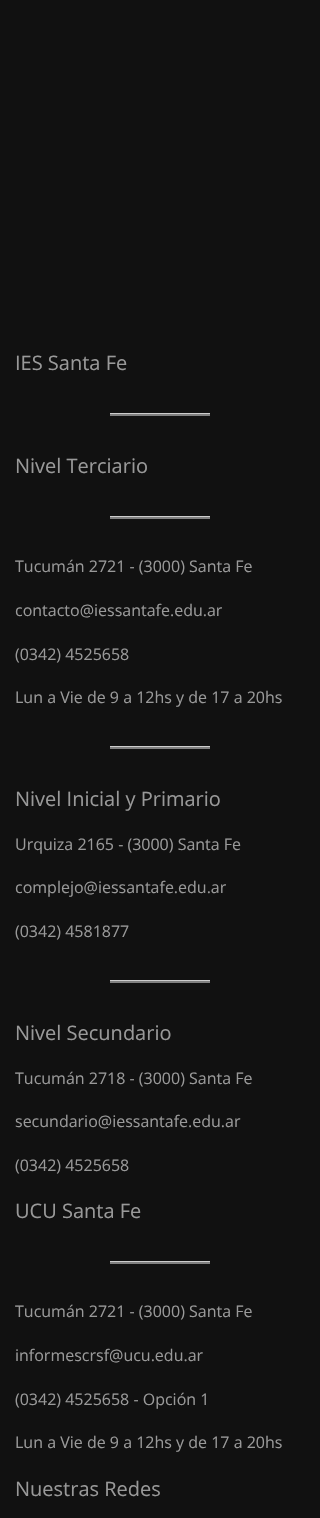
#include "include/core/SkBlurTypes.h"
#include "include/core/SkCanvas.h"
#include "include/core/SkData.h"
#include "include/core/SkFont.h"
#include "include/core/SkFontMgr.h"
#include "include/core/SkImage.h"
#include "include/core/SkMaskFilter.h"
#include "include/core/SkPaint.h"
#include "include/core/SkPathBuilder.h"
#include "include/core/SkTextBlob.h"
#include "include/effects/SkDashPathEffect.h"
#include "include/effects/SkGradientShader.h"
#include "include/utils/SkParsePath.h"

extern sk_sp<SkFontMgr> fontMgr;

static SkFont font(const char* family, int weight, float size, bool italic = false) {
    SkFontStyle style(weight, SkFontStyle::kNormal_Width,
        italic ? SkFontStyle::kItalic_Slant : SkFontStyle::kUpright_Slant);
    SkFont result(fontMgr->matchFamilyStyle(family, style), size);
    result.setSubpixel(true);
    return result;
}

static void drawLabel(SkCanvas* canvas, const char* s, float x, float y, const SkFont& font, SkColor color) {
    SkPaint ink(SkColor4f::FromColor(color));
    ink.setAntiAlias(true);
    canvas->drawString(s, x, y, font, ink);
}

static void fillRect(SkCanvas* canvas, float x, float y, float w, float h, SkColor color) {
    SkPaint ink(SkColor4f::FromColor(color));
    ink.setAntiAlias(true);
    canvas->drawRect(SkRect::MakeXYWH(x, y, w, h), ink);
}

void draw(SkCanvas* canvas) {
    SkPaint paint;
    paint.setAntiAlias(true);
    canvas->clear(0xFF111111);
    SkFont font1 = font("Open Sans", 400, 20);
    drawLabel(canvas, "IES Santa Fe", 15, 370, font1, 0xFF999999);
    fillRect(canvas, 110, 413, 100, 1, 0xFFCCCCCC);
    fillRect(canvas, 110, 414, 100, 2, 0xFF808080);
    drawLabel(canvas, "Nivel Terciario", 15, 473, font1, 0xFF999999);
    fillRect(canvas, 110, 516, 100, 1, 0xFFCCCCCC);
    fillRect(canvas, 110, 517, 100, 2, 0xFF808080);
    SkFont font2 = font("Open Sans", 400, 16);
    drawLabel(canvas, "Tucumán 2721 - (3000) Santa Fe", 15, 572, font2, 0xFF999999);
    drawLabel(canvas, "contacto@iessantafe.edu.ar", 15, 616, font2, 0xFF999999);
    drawLabel(canvas, "(0342) 4525658", 15, 660, font2, 0xFF999999);
    drawLabel(canvas, "Lun a Vie de 9 a 12hs y de 17 a 20hs", 15, 703, font2, 0xFF999999);
    fillRect(canvas, 110, 746, 100, 1, 0xFFCCCCCC);
    fillRect(canvas, 110, 747, 100, 2, 0xFF808080);
    drawLabel(canvas, "Nivel Inicial y Primario", 15, 806, font1, 0xFF999999);
    drawLabel(canvas, "Urquiza 2165 - (3000) Santa Fe", 15, 850, font2, 0xFF999999);
    drawLabel(canvas, "complejo@iessantafe.edu.ar", 15, 893, font2, 0xFF999999);
    drawLabel(canvas, "(0342) 4581877", 15, 937, font2, 0xFF999999);
    fillRect(canvas, 110, 980, 100, 1, 0xFFCCCCCC);
    fillRect(canvas, 110, 981, 100, 2, 0xFF808080);
    drawLabel(canvas, "Nivel Secundario", 15, 1040, font1, 0xFF999999);
    drawLabel(canvas, "Tucumán 2718 - (3000) Santa Fe", 15, 1084, font2, 0xFF999999);
    drawLabel(canvas, "secundario@iessantafe.edu.ar", 15, 1127, font2, 0xFF999999);
    drawLabel(canvas, "(0342) 4525658", 15, 1171, font2, 0xFF999999);
    drawLabel(canvas, "UCU Santa Fe", 15, 1218, font1, 0xFF999999);
    fillRect(canvas, 110, 1261, 100, 1, 0xFFCCCCCC);
    fillRect(canvas, 110, 1262, 100, 2, 0xFF808080);
    drawLabel(canvas, "Tucumán 2721 - (3000) Santa Fe", 15, 1317, font2, 0xFF999999);
    drawLabel(canvas, "informescrsf@ucu.edu.ar", 15, 1361, font2, 0xFF999999);
    drawLabel(canvas, "(0342) 4525658 - Opción 1", 15, 1405, font2, 0xFF999999);
    drawLabel(canvas, "Lun a Vie de 9 a 12hs y de 17 a 20hs", 15, 1448, font2, 0xFF999999);
    drawLabel(canvas, "Nuestras Redes", 15, 1496, font1, 0xFF999999);
}
